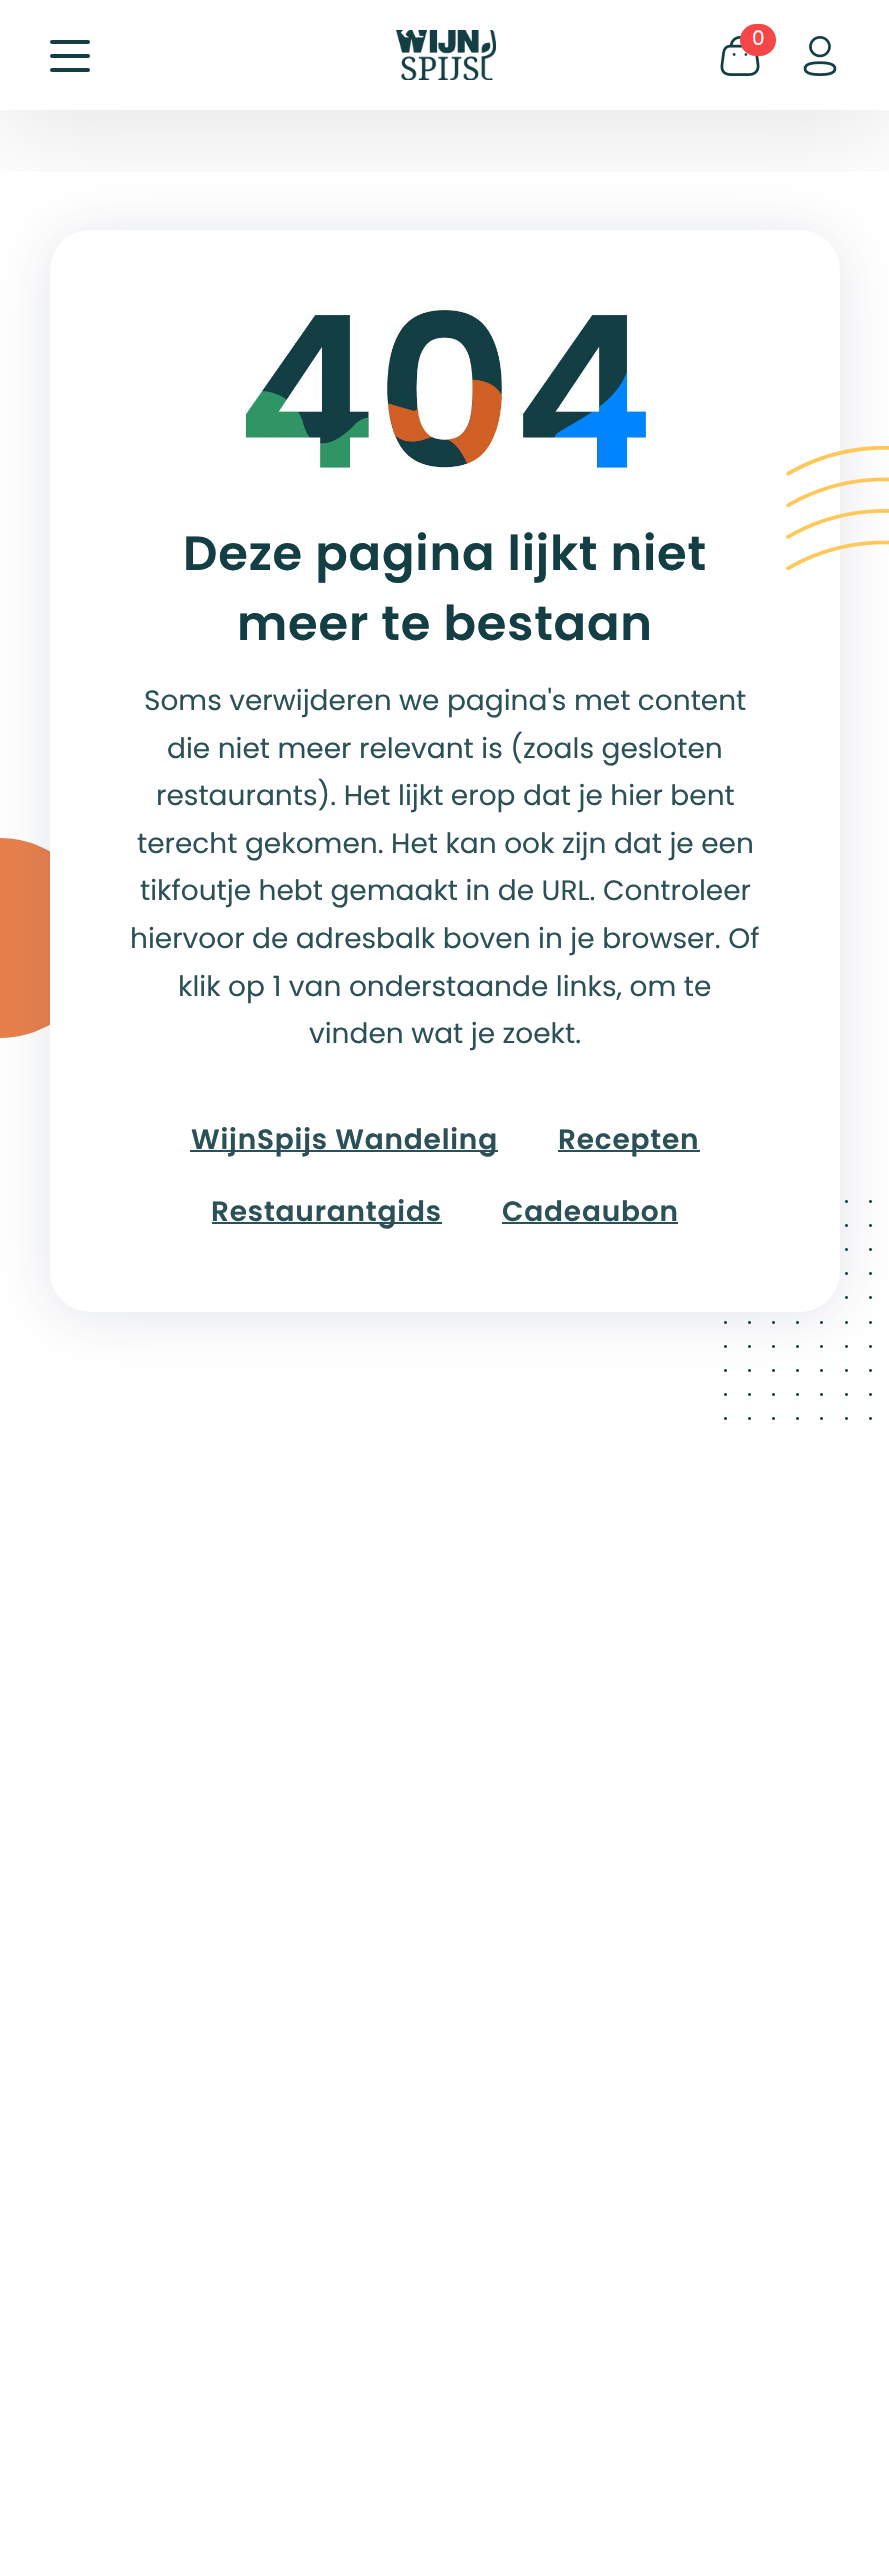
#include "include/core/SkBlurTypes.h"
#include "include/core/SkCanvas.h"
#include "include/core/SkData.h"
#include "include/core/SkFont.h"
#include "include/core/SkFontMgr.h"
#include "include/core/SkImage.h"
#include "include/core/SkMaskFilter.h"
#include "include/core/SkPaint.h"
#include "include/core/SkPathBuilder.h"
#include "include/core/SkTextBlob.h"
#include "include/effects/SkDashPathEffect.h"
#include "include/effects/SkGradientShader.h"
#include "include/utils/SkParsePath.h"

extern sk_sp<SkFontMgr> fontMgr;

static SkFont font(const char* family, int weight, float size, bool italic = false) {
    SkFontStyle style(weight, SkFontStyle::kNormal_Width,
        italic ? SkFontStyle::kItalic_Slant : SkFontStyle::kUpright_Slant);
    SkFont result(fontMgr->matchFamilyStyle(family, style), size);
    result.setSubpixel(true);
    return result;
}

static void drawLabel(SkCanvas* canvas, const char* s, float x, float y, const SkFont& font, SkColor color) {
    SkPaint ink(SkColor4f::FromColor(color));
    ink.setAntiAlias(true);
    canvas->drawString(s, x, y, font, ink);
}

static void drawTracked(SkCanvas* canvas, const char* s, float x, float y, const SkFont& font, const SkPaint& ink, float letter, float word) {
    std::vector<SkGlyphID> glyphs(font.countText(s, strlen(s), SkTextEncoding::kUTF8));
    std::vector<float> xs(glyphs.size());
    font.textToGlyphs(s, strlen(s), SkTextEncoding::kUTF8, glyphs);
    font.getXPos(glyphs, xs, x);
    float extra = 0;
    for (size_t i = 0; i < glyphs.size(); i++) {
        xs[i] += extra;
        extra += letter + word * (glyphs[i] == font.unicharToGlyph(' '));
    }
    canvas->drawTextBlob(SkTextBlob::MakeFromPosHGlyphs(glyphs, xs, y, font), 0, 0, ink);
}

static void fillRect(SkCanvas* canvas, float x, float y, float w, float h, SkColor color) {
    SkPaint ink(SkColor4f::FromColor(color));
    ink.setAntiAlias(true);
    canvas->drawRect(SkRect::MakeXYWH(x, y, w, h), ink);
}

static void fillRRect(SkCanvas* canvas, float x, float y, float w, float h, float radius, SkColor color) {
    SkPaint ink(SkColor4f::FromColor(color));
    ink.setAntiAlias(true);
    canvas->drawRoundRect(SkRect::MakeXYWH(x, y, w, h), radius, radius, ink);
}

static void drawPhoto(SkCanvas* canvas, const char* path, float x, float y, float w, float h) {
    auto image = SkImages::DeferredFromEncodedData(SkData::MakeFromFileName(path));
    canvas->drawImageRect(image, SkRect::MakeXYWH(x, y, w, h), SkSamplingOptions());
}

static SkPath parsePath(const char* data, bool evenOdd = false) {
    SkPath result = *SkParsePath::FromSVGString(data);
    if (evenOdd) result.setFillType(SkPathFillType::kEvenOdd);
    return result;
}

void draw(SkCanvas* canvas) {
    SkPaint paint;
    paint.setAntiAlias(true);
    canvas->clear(0xFFFFFFFF);
    paint.setColor(0xFFE87F4B);
    canvas->drawPath(parsePath("M0 838C55 838 100 883 100 938C100 993 55 1038 0 1038Z"), paint);
    drawPhoto(canvas, "assets/img6.png", 724, 1200, 148, 220);
    paint.setColor(0x263F496B);
    paint.setMaskFilter(SkMaskFilter::MakeBlur(kNormal_SkBlurStyle, 29));
    canvas->drawRoundRect(SkRect::MakeXYWH(50, 234, 790, 1082), 40, 40, paint);
    paint.setMaskFilter(nullptr);
    fillRRect(canvas, 50, 230, 790, 1082, 40, 0xFFFFFFFF);
    canvas->save();
    canvas->clipRect(SkRect::MakeXYWH(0, 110, 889, 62));
    paint.setColor(0x1A000000);
    paint.setMaskFilter(SkMaskFilter::MakeBlur(kNormal_SkBlurStyle, 50));
    canvas->drawRect(SkRect::MakeXYWH(0, 20, 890, 110), paint);
    paint.setMaskFilter(nullptr);
    canvas->restore();
    drawPhoto(canvas, "assets/img1.png", 396, 30, 100, 50);
    drawPhoto(canvas, "assets/img2.png", 720, 36, 40, 40);
    fillRRect(canvas, 740, 24, 36, 32, 16, 0xFFF54748);
    SkFont font1 = font("Poppins", 400, 20);
    drawLabel(canvas, "0", 752, 45, font1, 0xFFFFFFFF);
    drawPhoto(canvas, "assets/img3.png", 803, 36, 34, 40);
    fillRRect(canvas, 50, 40, 40, 4, 2, 0xFF133E44);
    fillRRect(canvas, 50, 54, 40, 4, 2, 0xFF133E44);
    fillRRect(canvas, 50, 68, 40, 4, 2, 0xFF133E44);
    drawPhoto(canvas, "assets/img4.png", 786, 446, 103, 125);
    drawPhoto(canvas, "assets/img5.png", 246, 310, 400, 158);
    SkFont font2 = font("Poppins", 600, 48);
    paint.setColor(0xFF133E44);
    drawTracked(canvas, "Deze pagina lijkt niet", 183, 570, font2, paint, 0.8f, 0);
    drawTracked(canvas, "meer te bestaan", 237, 640, font2, paint, 0.8f, 0);
    SkFont font3 = font("Poppins", 400, 28);
    drawLabel(canvas, "Soms verwijderen we pagina's met content", 144, 710, font3, 0xFF2B5157);
    drawLabel(canvas, "die niet meer relevant is (zoals gesloten", 167, 758, font3, 0xFF2B5157);
    drawLabel(canvas, "restaurants). Het lijkt erop dat je hier bent", 156, 805, font3, 0xFF2B5157);
    drawLabel(canvas, "terecht gekomen. Het kan ook zijn dat je een", 137, 853, font3, 0xFF2B5157);
    drawLabel(canvas, "tikfoutje hebt gemaakt in de URL. Controleer", 140, 900, font3, 0xFF2B5157);
    drawLabel(canvas, "hiervoor de adresbalk boven in je browser. Of", 130, 948, font3, 0xFF2B5157);
    drawLabel(canvas, "klik op 1 van onderstaande links, om te", 178, 996, font3, 0xFF2B5157);
    drawLabel(canvas, "vinden wat je zoekt.", 309, 1043, font3, 0xFF2B5157);
    fillRect(canvas, 190, 1150, 308, 2, 0xFF2B5157);
    SkFont font4 = font("Poppins", 600, 28);
    paint.setColor(0xFF2B5157);
    drawTracked(canvas, "WijnSpijs Wandeling", 191, 1149, font4, paint, 0.8f, 0);
    fillRect(canvas, 558, 1150, 142, 2, 0xFF2B5157);
    drawTracked(canvas, "Recepten", 558, 1149, font4, paint, 0.8f, 0);
    fillRect(canvas, 212, 1222, 230, 2, 0xFF2B5157);
    drawTracked(canvas, "Restaurantgids", 211, 1221, font4, paint, 0.8f, 0);
    drawTracked(canvas, "Cadeaubon", 502, 1221, font4, paint, 0.8f, 0);
    fillRect(canvas, 502, 1222, 176, 2, 0xFF2B5157);
}
